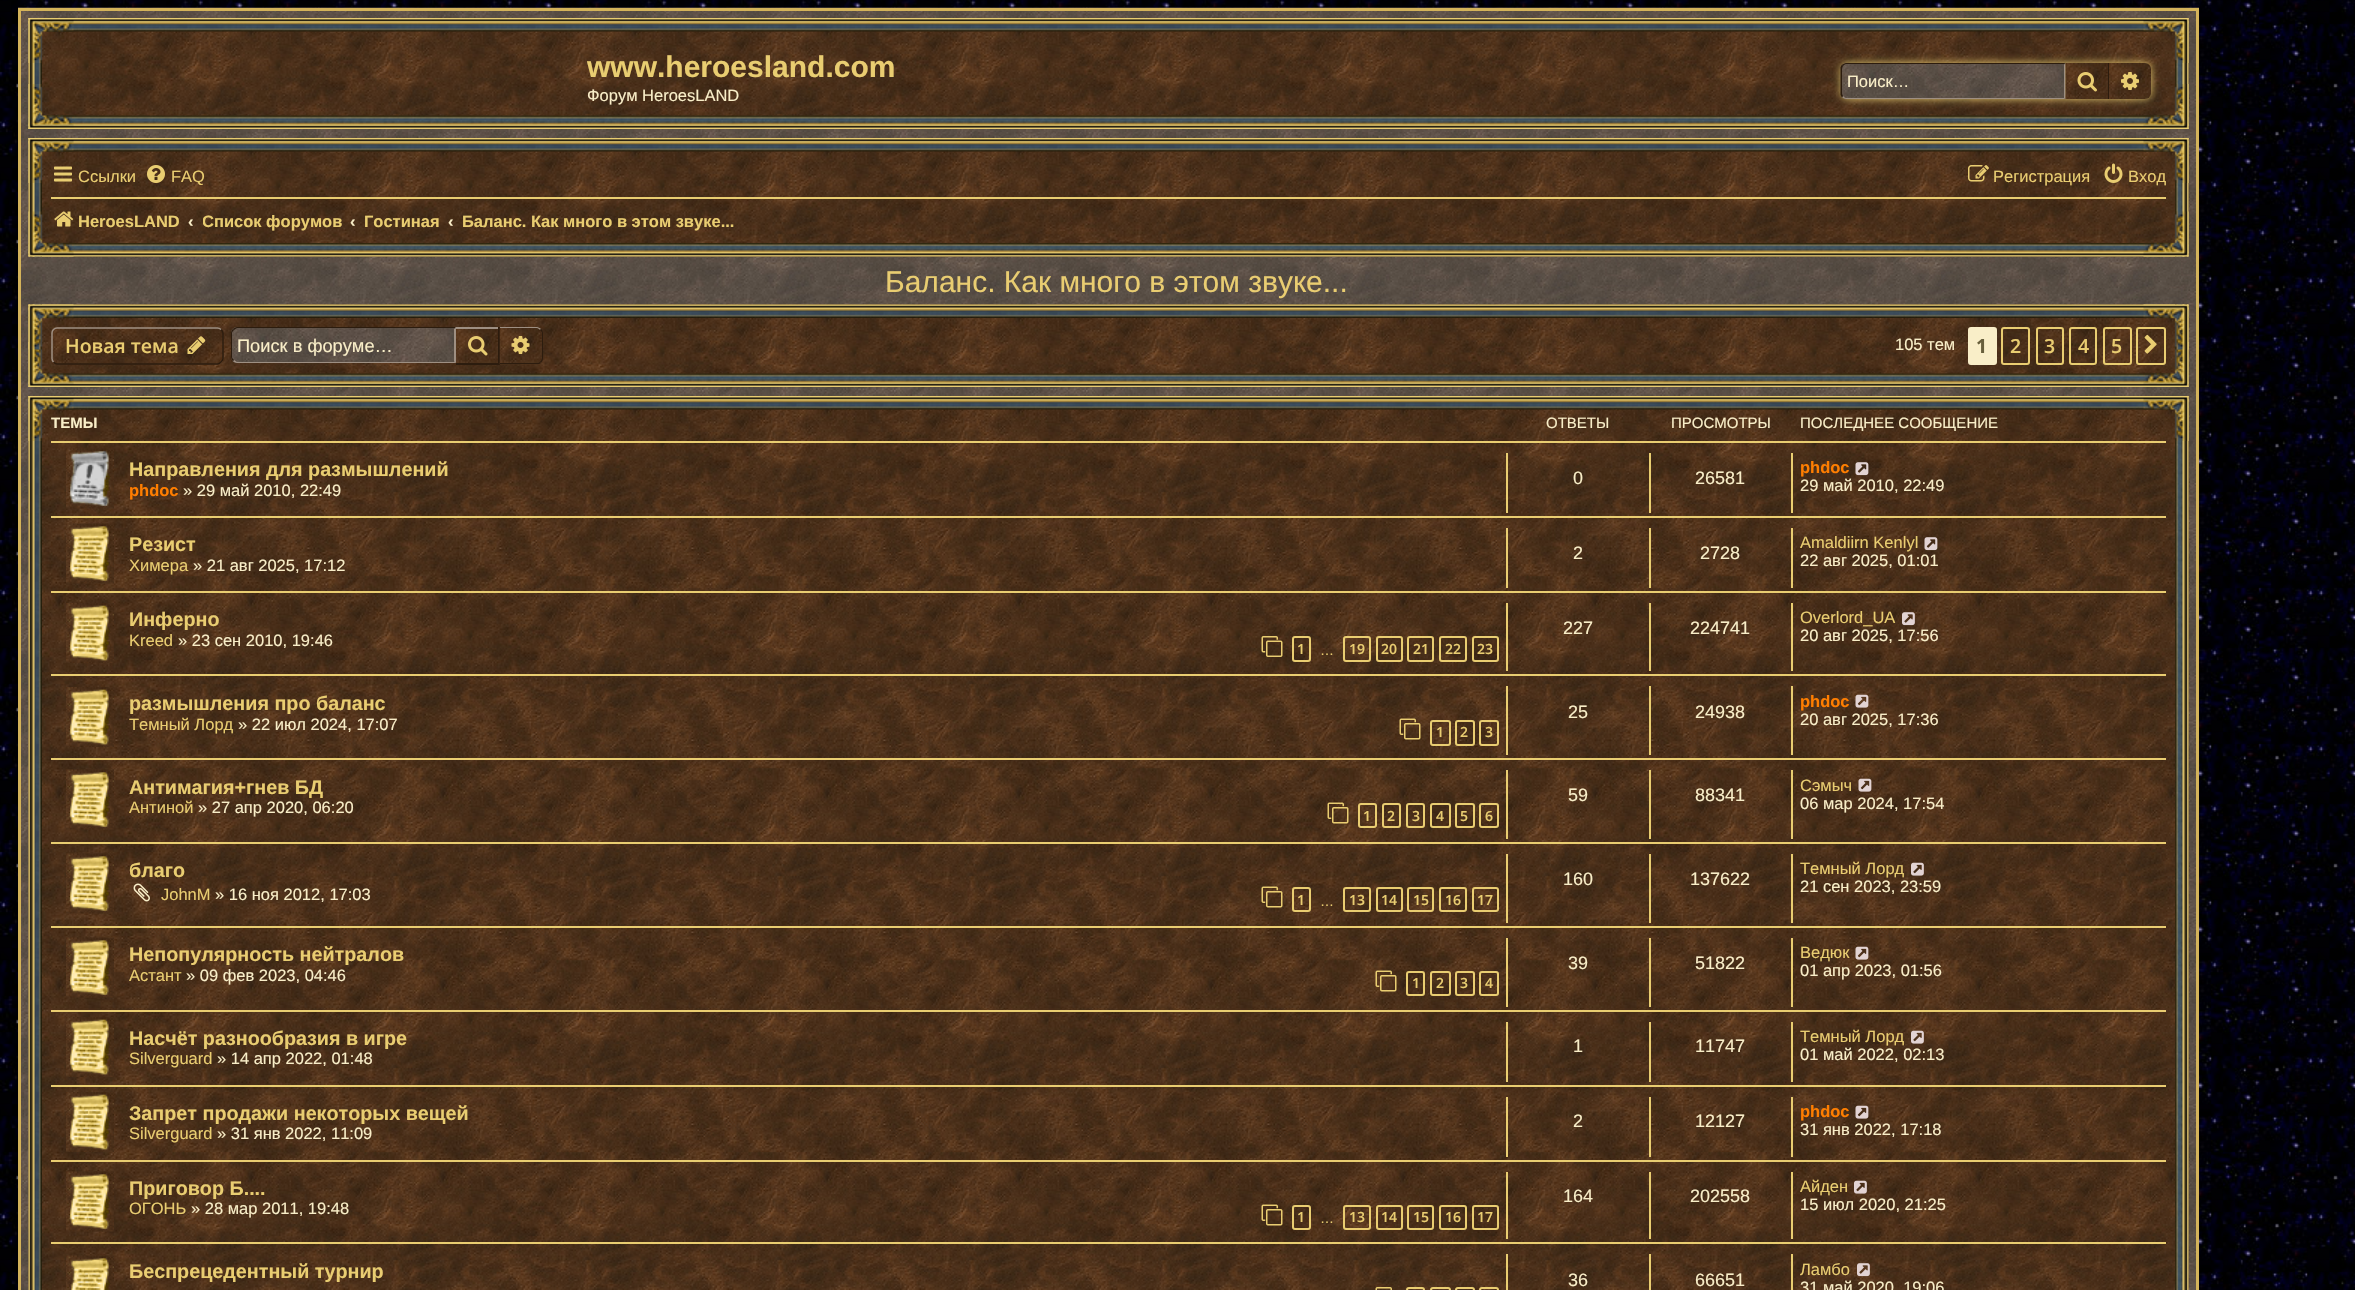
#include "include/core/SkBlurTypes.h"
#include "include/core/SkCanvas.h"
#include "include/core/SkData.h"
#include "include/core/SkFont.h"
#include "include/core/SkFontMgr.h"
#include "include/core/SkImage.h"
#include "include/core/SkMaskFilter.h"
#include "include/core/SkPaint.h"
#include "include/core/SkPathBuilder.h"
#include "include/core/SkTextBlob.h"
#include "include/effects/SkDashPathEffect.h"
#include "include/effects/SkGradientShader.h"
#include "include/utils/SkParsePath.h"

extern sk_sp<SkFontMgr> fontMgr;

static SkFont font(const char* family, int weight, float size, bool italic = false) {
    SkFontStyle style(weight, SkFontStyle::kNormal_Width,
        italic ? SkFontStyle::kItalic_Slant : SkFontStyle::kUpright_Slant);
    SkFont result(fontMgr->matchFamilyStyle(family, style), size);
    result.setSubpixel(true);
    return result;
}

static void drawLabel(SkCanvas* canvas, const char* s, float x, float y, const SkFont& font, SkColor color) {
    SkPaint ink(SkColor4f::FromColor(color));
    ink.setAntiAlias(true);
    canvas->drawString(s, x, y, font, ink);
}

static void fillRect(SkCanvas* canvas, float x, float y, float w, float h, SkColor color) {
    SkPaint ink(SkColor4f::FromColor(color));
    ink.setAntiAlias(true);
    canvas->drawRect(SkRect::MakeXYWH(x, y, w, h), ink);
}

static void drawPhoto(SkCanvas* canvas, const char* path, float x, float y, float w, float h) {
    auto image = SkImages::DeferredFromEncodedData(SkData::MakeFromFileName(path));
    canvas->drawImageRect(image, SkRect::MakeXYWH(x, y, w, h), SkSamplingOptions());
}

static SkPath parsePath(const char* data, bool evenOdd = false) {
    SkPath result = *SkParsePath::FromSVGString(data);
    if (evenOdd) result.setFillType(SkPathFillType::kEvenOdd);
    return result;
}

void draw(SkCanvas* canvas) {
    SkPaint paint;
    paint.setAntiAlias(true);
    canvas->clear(0xFFFFFFFF);
    drawPhoto(canvas, "assets/img1.png", 0, 0, 2355, 1290);
    drawPhoto(canvas, "assets/img2.png", 18, 7, 2181, 1283);
    paint.setStroke(true);
    paint.setStrokeWidth(3);
    paint.setColor(0xFFD4B35A);
    canvas->drawRect(SkRect::MakeXYWH(19.5f, 9.5f, 2178, 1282), paint);
    drawPhoto(canvas, "assets/img3.png", 28, 18, 2161, 111);
    SkFont font1 = font("Liberation Sans", 700, 30);
    drawLabel(canvas, "www.heroesland.com", 587, 77, font1, 0xFFE9CD71);
    SkFont font2 = font("Liberation Sans", 400, 16.5f);
    drawLabel(canvas, "Форум HeroesLAND", 587, 101, font2, 0xFFF9EEC8);
    paint.setStroke(false);
    paint.setColor(0xFFE9CD71);
    paint.setMaskFilter(SkMaskFilter::MakeBlur(kNormal_SkBlurStyle, 4));
    canvas->drawRoundRect(SkRect::MakeXYWH(1841, 63, 310, 36), 6, 6, paint);
    paint.setMaskFilter(nullptr);
    drawPhoto(canvas, "assets/img4.png", 1840, 63, 226, 36);
    paint.setColor(0xFF2C1C0E);
    canvas->drawPath(parsePath("M1846 63C1845 63 1843 64 1842 65L1843 66C1844 65 1845 64 1846 64H2064L2066 63Z"), paint);
    paint.setColor(0xFF9E8F82);
    canvas->drawPath(parsePath("M2065.5 63V99L2064 97.5V64.5Z"), paint);
    canvas->drawPath(parsePath("M2066 99L2064 98H1846C1845 98 1844 97 1843 96L1842 97C1843 98 1845 99 1846 99Z"), paint);
    paint.setColor(0xFF2C1C0E);
    canvas->drawPath(parsePath("M1840.5 67L1842 64.5L1843 66C1842.5 67 1842 68 1842 69V93C1842 94 1842.5 95 1843 96L1842 97.5L1840.5 95Z"), paint);
    drawLabel(canvas, "Поиск…", 1847, 87, font2, 0xFFF9EEC8);
    drawPhoto(canvas, "assets/img5.png", 2065, 63, 43, 36);
    fillRect(canvas, 2108, 63, 1, 36, 0xFF2C1C0E);
    drawPhoto(canvas, "assets/img6.png", 2077, 72, 20, 20);
    drawPhoto(canvas, "assets/img7.png", 2109, 63, 42, 36);
    drawPhoto(canvas, "assets/img8.png", 2121, 72, 18, 18);
    drawPhoto(canvas, "assets/img9.png", 28, 138, 2161, 119);
    drawPhoto(canvas, "assets/img10.png", 54, 166, 18, 16);
    drawLabel(canvas, "Ссылки", 78, 182, font2, 0xFFE9CD71);
    drawPhoto(canvas, "assets/img11.png", 147, 165, 18, 18);
    drawLabel(canvas, "FAQ", 171, 182, font2, 0xFFE9CD71);
    drawPhoto(canvas, "assets/img12.png", 1968, 165, 21, 17);
    drawLabel(canvas, "Регистрация", 1993, 182, font2, 0xFFE9CD71);
    drawPhoto(canvas, "assets/img13.png", 2104, 163, 19, 20);
    drawLabel(canvas, "Вход", 2128, 182, font2, 0xFFE9CD71);
    fillRect(canvas, 51, 197, 2115, 2, 0xFFE9CD71);
    drawPhoto(canvas, "assets/img14.png", 54, 211, 20, 16);
    SkFont font3 = font("Liberation Sans", 700, 16.5f);
    drawLabel(canvas, "HeroesLAND", 78, 227, font3, 0xFFE9CD71);
    drawLabel(canvas, "‹", 188, 227, font3, 0xFFF9EEC8);
    canvas->save();
    canvas->clipRect(SkRect::MakeXYWH(203, 203, 139, 36));
    drawLabel(canvas, "Список форумов", 202, 227, font3, 0xFFE9CD71);
    canvas->restore();
    drawLabel(canvas, "‹", 350, 227, font3, 0xFFF9EEC8);
    drawLabel(canvas, "Гостиная", 364, 227, font3, 0xFFE9CD71);
    drawLabel(canvas, "‹", 448, 227, font3, 0xFFF9EEC8);
    drawLabel(canvas, "Баланс. Как много в этом звуке...", 462, 227, font3, 0xFFE9CD71);
    SkFont font4 = font("Liberation Sans", 400, 30);
    drawLabel(canvas, "Баланс. Как много в этом звуке...", 885, 292, font4, 0xFFE9CD71);
    drawPhoto(canvas, "assets/img15.png", 28, 304, 2161, 83);
    drawPhoto(canvas, "assets/img16.png", 51, 327, 172, 38);
    paint.setStroke(true);
    paint.setStrokeWidth(1.5f);
    canvas->drawPath(parsePath("M221 329.5C222 330.5 223 331.5 223 333V358.5C223 360 222 361 221 362C220 363 219 364 217.5 364H57C55.5 364 54.5 363 53.5 362"), paint);
    paint.setColor(0xFF9E8F82);
    canvas->drawPath(parsePath("M53.5 362C52.5 361 52 360 52 358.5V333C52 331.5 52.5 330.5 53.5 329.5C54.5 328.5 55.5 328 57 328H217.5C219 328 220 328.5 221 329.5"), paint);
    SkFont font5 = font("Open Sans", 600, 19.5f);
    drawLabel(canvas, "Новая тема", 65, 353, font5, 0xFFE9CD71);
    drawPhoto(canvas, "assets/img17.png", 187, 336, 19, 18);
    drawPhoto(canvas, "assets/img18.png", 231, 327, 225, 36);
    paint.setStroke(false);
    paint.setColor(0xFF2C1C0E);
    canvas->drawPath(parsePath("M237 327C236 327 234 328 233 329L234 330L237 328H454V329L456 327Z"), paint);
    paint.setColor(0xFF9E8F82);
    canvas->drawPath(parsePath("M456 327L454 329V361L456 363Z"), paint);
    canvas->drawPath(parsePath("M456 363L454 361V362H237L234 360L233 361C234 362 236 363 237 363Z"), paint);
    paint.setColor(0xFF2C1C0E);
    canvas->drawPath(parsePath("M231 333V357C231 358.5 232 360 233 361L234 360C233 359 232 358 232 357V333C232 332 233 331 234 330L233 329C232 330 231 331.5 231 333Z"), paint);
    SkFont font6 = font("Liberation Sans", 400, 18.25f);
    drawLabel(canvas, "Поиск в форуме…", 237, 352, font6, 0xFFF9EEC8);
    drawPhoto(canvas, "assets/img19.png", 456, 329, 42, 34);
    fillRect(canvas, 456, 327, 44, 2, 0xFF9E8F82);
    fillRect(canvas, 498, 327, 2, 38, 0xFF2C1C0E);
    fillRect(canvas, 456, 363, 44, 2, 0xFF2C1C0E);
    drawPhoto(canvas, "assets/img20.png", 468, 336, 20, 20);
    drawPhoto(canvas, "assets/img21.png", 499, 327, 44, 38);
    paint.setColor(0xFF9E8F82);
    canvas->drawPath(parsePath("M500 327H537C538 327 540 328 541 329L540 330C539 329 538 328 537 328H500Z"), paint);
    paint.setColor(0xFF2C1C0E);
    canvas->drawPath(parsePath("M540 361.5C541 361 542 359.5 542 358V333C542 332 541 331 540 330L541 329C542 330 543 331.5 543 333V358C543 360 542 361.5 541 362.5Z"), paint);
    canvas->drawPath(parsePath("M541 363L540 362C539 363 538 363 537 363H500V364H537C538 364 540 364 541 363Z"), paint);
    drawPhoto(canvas, "assets/img22.png", 511, 336, 19, 18);
    drawLabel(canvas, "105 тем", 1895, 350, font2, 0xFFF9EEC8);
    paint.setColor(0xFFF9EEC8);
    canvas->drawRoundRect(SkRect::MakeXYWH(1969, 328, 27, 36), 2, 2, paint);
    paint.setStroke(true);
    paint.setStrokeWidth(2);
    canvas->drawRoundRect(SkRect::MakeXYWH(1969, 328, 27, 36), 2, 2, paint);
    SkFont font7 = font("Open Sans", 700, 19.5f);
    drawLabel(canvas, "1", 1976, 353, font7, 0xFF685F3C);
    paint.setColor(0xFFE9CD71);
    canvas->drawRoundRect(SkRect::MakeXYWH(2002, 328, 27, 36), 2, 2, paint);
    drawLabel(canvas, "2", 2010, 353, font5, 0xFFE9CD71);
    canvas->drawRoundRect(SkRect::MakeXYWH(2037, 328, 26, 36), 2, 2, paint);
    drawLabel(canvas, "3", 2044, 353, font5, 0xFFE9CD71);
    canvas->drawRoundRect(SkRect::MakeXYWH(2070, 328, 26, 36), 2, 2, paint);
    drawLabel(canvas, "4", 2078, 353, font5, 0xFFE9CD71);
    canvas->drawRoundRect(SkRect::MakeXYWH(2104, 328, 27, 36), 2, 2, paint);
    drawLabel(canvas, "5", 2111, 353, font5, 0xFFE9CD71);
    canvas->drawRoundRect(SkRect::MakeXYWH(2137, 328, 28, 36), 2, 2, paint);
    drawPhoto(canvas, "assets/img23.png", 2144, 334, 13, 20);
    drawPhoto(canvas, "assets/img24.png", 28, 396, 2161, 894);
    SkFont font8 = font("Liberation Sans", 700, 15);
    drawLabel(canvas, "ТЕМЫ", 51, 428, font8, 0xFFF9EEC8);
    SkFont font9 = font("Liberation Sans", 400, 15);
    drawLabel(canvas, "ОТВЕТЫ", 1546, 428, font9, 0xFFF9EEC8);
    drawLabel(canvas, "ПРОСМОТРЫ", 1671, 428, font9, 0xFFF9EEC8);
    drawLabel(canvas, "ПОСЛЕДНЕЕ СООБЩЕНИЕ", 1800, 428, font9, 0xFFF9EEC8);
    fillRect(canvas, 51, 441, 2115, 2, 0xFFE9CD71);
    drawPhoto(canvas, "assets/img25.png", 66, 448, 48, 61);
    SkFont font10 = font("Liberation Sans", 700, 19.75f);
    drawLabel(canvas, "Направления для размышлений", 129, 476, font10, 0xFFE9CD71);
    drawLabel(canvas, "phdoc", 129, 496, font3, 0xFFFF7E00);
    drawLabel(canvas, "» 29 май 2010, 22:49", 183, 496, font2, 0xFFF9EEC8);
    fillRect(canvas, 1506, 453, 2, 60, 0xFFE9CD71);
    SkFont font11 = font("Liberation Sans", 400, 18);
    drawLabel(canvas, "0", 1573, 484, font11, 0xFFF9EEC8);
    fillRect(canvas, 1649, 453, 2, 60, 0xFFE9CD71);
    drawLabel(canvas, "26581", 1695, 484, font11, 0xFFF9EEC8);
    fillRect(canvas, 1791, 453, 2, 60, 0xFFE9CD71);
    drawLabel(canvas, "phdoc", 1800, 473, font3, 0xFFFF7E00);
    drawPhoto(canvas, "assets/img26.png", 1855, 462, 14, 14);
    drawLabel(canvas, "29 май 2010, 22:49", 1800, 491, font2, 0xFFF9EEC8);
    fillRect(canvas, 51, 516, 2115, 2, 0xFFE9CD71);
    drawPhoto(canvas, "assets/img27.png", 66, 523, 48, 61);
    drawLabel(canvas, "Резист", 129, 551, font10, 0xFFE9CD71);
    drawLabel(canvas, "Химера", 129, 571, font2, 0xFFE9CD71);
    drawLabel(canvas, "» 21 авг 2025, 17:12", 193, 571, font2, 0xFFF9EEC8);
    fillRect(canvas, 1506, 528, 2, 60, 0xFFE9CD71);
    drawLabel(canvas, "2", 1573, 559, font11, 0xFFF9EEC8);
    fillRect(canvas, 1649, 528, 2, 60, 0xFFE9CD71);
    drawLabel(canvas, "2728", 1700, 559, font11, 0xFFF9EEC8);
    fillRect(canvas, 1791, 528, 2, 60, 0xFFE9CD71);
    drawLabel(canvas, "Amaldiirn Kenlyl", 1800, 548, font2, 0xFFE9CD71);
    drawPhoto(canvas, "assets/img28.png", 1924, 537, 14, 14);
    drawLabel(canvas, "22 авг 2025, 01:01", 1800, 566, font2, 0xFFF9EEC8);
    fillRect(canvas, 51, 591, 2115, 2, 0xFFE9CD71);
    drawPhoto(canvas, "assets/img29.png", 66, 603, 48, 60);
    drawLabel(canvas, "Инферно", 129, 626, font10, 0xFFE9CD71);
    drawLabel(canvas, "Kreed", 129, 646, font2, 0xFFE9CD71);
    drawLabel(canvas, "» 23 сен 2010, 19:46", 178, 646, font2, 0xFFF9EEC8);
    drawPhoto(canvas, "assets/img30.png", 1261, 636, 22, 21);
    canvas->drawRoundRect(SkRect::MakeXYWH(1293, 637, 17, 24), 2, 2, paint);
    SkFont font12 = font("Open Sans", 600, 14);
    drawLabel(canvas, "1", 1297, 654, font12, 0xFFE9CD71);
    SkFont font13 = font("Liberation Sans", 400, 14);
    drawLabel(canvas, "…", 1320, 655, font13, 0xFFE9CD71);
    canvas->drawRoundRect(SkRect::MakeXYWH(1344, 637, 26, 24), 2, 2, paint);
    drawLabel(canvas, "19", 1349, 654, font12, 0xFFE9CD71);
    canvas->drawRoundRect(SkRect::MakeXYWH(1377, 637, 25, 24), 2, 2, paint);
    drawLabel(canvas, "20", 1381, 654, font12, 0xFFE9CD71);
    canvas->drawRoundRect(SkRect::MakeXYWH(1408, 637, 25, 24), 2, 2, paint);
    drawLabel(canvas, "21", 1413, 654, font12, 0xFFE9CD71);
    canvas->drawRoundRect(SkRect::MakeXYWH(1440, 637, 26, 24), 2, 2, paint);
    drawLabel(canvas, "22", 1445, 654, font12, 0xFFE9CD71);
    canvas->drawRoundRect(SkRect::MakeXYWH(1473, 637, 25, 24), 2, 2, paint);
    drawLabel(canvas, "23", 1477, 654, font12, 0xFFE9CD71);
    fillRect(canvas, 1506, 603, 2, 68, 0xFFE9CD71);
    drawLabel(canvas, "227", 1563, 634, font11, 0xFFF9EEC8);
    fillRect(canvas, 1649, 603, 2, 68, 0xFFE9CD71);
    drawLabel(canvas, "224741", 1690, 634, font11, 0xFFF9EEC8);
    fillRect(canvas, 1791, 603, 2, 68, 0xFFE9CD71);
    drawLabel(canvas, "Overlord_UA", 1800, 623, font2, 0xFFE9CD71);
    drawPhoto(canvas, "assets/img31.png", 1902, 612, 13, 14);
    drawLabel(canvas, "20 авг 2025, 17:56", 1800, 641, font2, 0xFFF9EEC8);
    fillRect(canvas, 51, 674, 2115, 2, 0xFFE9CD71);
    drawPhoto(canvas, "assets/img29.png", 66, 687, 48, 60);
    drawLabel(canvas, "размышления про баланс", 129, 710, font10, 0xFFE9CD71);
    drawLabel(canvas, "Темный Лорд", 129, 730, font2, 0xFFE9CD71);
    drawLabel(canvas, "» 22 июл 2024, 17:07", 238, 730, font2, 0xFFF9EEC8);
    drawPhoto(canvas, "assets/img32.png", 1399, 718, 22, 22);
    canvas->drawRoundRect(SkRect::MakeXYWH(1431, 721, 19, 24), 2, 2, paint);
    drawLabel(canvas, "1", 1436, 737, font12, 0xFFE9CD71);
    canvas->drawRoundRect(SkRect::MakeXYWH(1456, 721, 18, 24), 2, 2, paint);
    drawLabel(canvas, "2", 1460, 737, font12, 0xFFE9CD71);
    canvas->drawRoundRect(SkRect::MakeXYWH(1480, 721, 18, 24), 2, 2, paint);
    drawLabel(canvas, "3", 1485, 737, font12, 0xFFE9CD71);
    fillRect(canvas, 1506, 686, 2, 69, 0xFFE9CD71);
    drawLabel(canvas, "25", 1568, 718, font11, 0xFFF9EEC8);
    fillRect(canvas, 1649, 686, 2, 69, 0xFFE9CD71);
    drawLabel(canvas, "24938", 1695, 718, font11, 0xFFF9EEC8);
    fillRect(canvas, 1791, 686, 2, 69, 0xFFE9CD71);
    drawLabel(canvas, "phdoc", 1800, 707, font3, 0xFFFF7E00);
    drawPhoto(canvas, "assets/img33.png", 1855, 694, 14, 14);
    drawLabel(canvas, "20 авг 2025, 17:36", 1800, 725, font2, 0xFFF9EEC8);
    fillRect(canvas, 51, 758, 2115, 2, 0xFFE9CD71);
    drawPhoto(canvas, "assets/img34.png", 66, 769, 48, 61);
    drawLabel(canvas, "Антимагия+гнев БД", 129, 794, font10, 0xFFE9CD71);
    drawLabel(canvas, "Антиной", 129, 813, font2, 0xFFE9CD71);
    drawLabel(canvas, "» 27 апр 2020, 06:20", 198, 813, font2, 0xFFF9EEC8);
    drawPhoto(canvas, "assets/img35.png", 1327, 802, 22, 22);
    canvas->drawRoundRect(SkRect::MakeXYWH(1359, 804, 17, 23), 2, 2, paint);
    drawLabel(canvas, "1", 1363, 821, font12, 0xFFE9CD71);
    canvas->drawRoundRect(SkRect::MakeXYWH(1383, 804, 17, 23), 2, 2, paint);
    drawLabel(canvas, "2", 1387, 821, font12, 0xFFE9CD71);
    canvas->drawRoundRect(SkRect::MakeXYWH(1407, 804, 17, 23), 2, 2, paint);
    drawLabel(canvas, "3", 1412, 821, font12, 0xFFE9CD71);
    canvas->drawRoundRect(SkRect::MakeXYWH(1431, 804, 19, 23), 2, 2, paint);
    drawLabel(canvas, "4", 1436, 821, font12, 0xFFE9CD71);
    canvas->drawRoundRect(SkRect::MakeXYWH(1456, 804, 18, 23), 2, 2, paint);
    drawLabel(canvas, "5", 1460, 821, font12, 0xFFE9CD71);
    canvas->drawRoundRect(SkRect::MakeXYWH(1480, 804, 18, 23), 2, 2, paint);
    drawLabel(canvas, "6", 1485, 821, font12, 0xFFE9CD71);
    fillRect(canvas, 1506, 770, 2, 69, 0xFFE9CD71);
    drawLabel(canvas, "59", 1568, 801, font11, 0xFFF9EEC8);
    fillRect(canvas, 1649, 770, 2, 69, 0xFFE9CD71);
    drawLabel(canvas, "88341", 1695, 801, font11, 0xFFF9EEC8);
    fillRect(canvas, 1791, 770, 2, 69, 0xFFE9CD71);
    drawLabel(canvas, "Сэмыч", 1800, 791, font2, 0xFFE9CD71);
    drawPhoto(canvas, "assets/img36.png", 1858, 778, 14, 14);
    drawLabel(canvas, "06 мар 2024, 17:54", 1800, 809, font2, 0xFFF9EEC8);
    fillRect(canvas, 51, 842, 2115, 2, 0xFFE9CD71);
    drawPhoto(canvas, "assets/img37.png", 66, 853, 48, 61);
    drawLabel(canvas, "благо", 129, 877, font10, 0xFFE9CD71);
    drawPhoto(canvas, "assets/img38.png", 133, 883, 17, 19);
    drawLabel(canvas, "JohnM", 161, 900, font2, 0xFFE9CD71);
    drawLabel(canvas, "» 16 ноя 2012, 17:03", 215, 900, font2, 0xFFF9EEC8);
    drawPhoto(canvas, "assets/img39.png", 1261, 886, 22, 22);
    canvas->drawRoundRect(SkRect::MakeXYWH(1293, 888, 17, 23), 2, 2, paint);
    drawLabel(canvas, "1", 1297, 905, font12, 0xFFE9CD71);
    drawLabel(canvas, "…", 1320, 906, font13, 0xFFE9CD71);
    canvas->drawRoundRect(SkRect::MakeXYWH(1344, 888, 26, 23), 2, 2, paint);
    drawLabel(canvas, "13", 1349, 905, font12, 0xFFE9CD71);
    canvas->drawRoundRect(SkRect::MakeXYWH(1377, 888, 25, 23), 2, 2, paint);
    drawLabel(canvas, "14", 1381, 905, font12, 0xFFE9CD71);
    canvas->drawRoundRect(SkRect::MakeXYWH(1408, 888, 25, 23), 2, 2, paint);
    drawLabel(canvas, "15", 1413, 905, font12, 0xFFE9CD71);
    canvas->drawRoundRect(SkRect::MakeXYWH(1440, 888, 26, 23), 2, 2, paint);
    drawLabel(canvas, "16", 1445, 905, font12, 0xFFE9CD71);
    canvas->drawRoundRect(SkRect::MakeXYWH(1473, 888, 25, 23), 2, 2, paint);
    drawLabel(canvas, "17", 1477, 905, font12, 0xFFE9CD71);
    fillRect(canvas, 1506, 854, 2, 69, 0xFFE9CD71);
    drawLabel(canvas, "160", 1563, 885, font11, 0xFFF9EEC8);
    fillRect(canvas, 1649, 854, 2, 69, 0xFFE9CD71);
    drawLabel(canvas, "137622", 1690, 885, font11, 0xFFF9EEC8);
    fillRect(canvas, 1791, 854, 2, 69, 0xFFE9CD71);
    drawLabel(canvas, "Темный Лорд", 1800, 874, font2, 0xFFE9CD71);
    drawPhoto(canvas, "assets/img40.png", 1911, 862, 13, 14);
    drawLabel(canvas, "21 сен 2023, 23:59", 1800, 892, font2, 0xFFF9EEC8);
    fillRect(canvas, 51, 926, 2115, 2, 0xFFE9CD71);
    drawPhoto(canvas, "assets/img41.png", 66, 937, 48, 61);
    drawLabel(canvas, "Непопулярность нейтралов", 129, 961, font10, 0xFFE9CD71);
    drawLabel(canvas, "Астант", 129, 981, font2, 0xFFE9CD71);
    drawLabel(canvas, "» 09 фев 2023, 04:46", 186, 981, font2, 0xFFF9EEC8);
    drawPhoto(canvas, "assets/img42.png", 1375, 970, 22, 22);
    canvas->drawRoundRect(SkRect::MakeXYWH(1407, 972, 17, 23), 2, 2, paint);
    drawLabel(canvas, "1", 1412, 988, font12, 0xFFE9CD71);
    canvas->drawRoundRect(SkRect::MakeXYWH(1431, 972, 19, 23), 2, 2, paint);
    drawLabel(canvas, "2", 1436, 988, font12, 0xFFE9CD71);
    canvas->drawRoundRect(SkRect::MakeXYWH(1456, 972, 18, 23), 2, 2, paint);
    drawLabel(canvas, "3", 1460, 988, font12, 0xFFE9CD71);
    canvas->drawRoundRect(SkRect::MakeXYWH(1480, 972, 18, 23), 2, 2, paint);
    drawLabel(canvas, "4", 1485, 988, font12, 0xFFE9CD71);
    fillRect(canvas, 1506, 938, 2, 69, 0xFFE9CD71);
    drawLabel(canvas, "39", 1568, 969, font11, 0xFFF9EEC8);
    fillRect(canvas, 1649, 938, 2, 69, 0xFFE9CD71);
    drawLabel(canvas, "51822", 1695, 969, font11, 0xFFF9EEC8);
    fillRect(canvas, 1791, 938, 2, 69, 0xFFE9CD71);
    drawLabel(canvas, "Ведюк", 1800, 958, font2, 0xFFE9CD71);
    drawPhoto(canvas, "assets/img43.png", 1855, 946, 14, 14);
    drawLabel(canvas, "01 апр 2023, 01:56", 1800, 976, font2, 0xFFF9EEC8);
    fillRect(canvas, 51, 1010, 2115, 2, 0xFFE9CD71);
    drawPhoto(canvas, "assets/img44.png", 66, 1017, 48, 60);
    drawLabel(canvas, "Насчёт разнообразия в игре", 129, 1045, font10, 0xFFE9CD71);
    drawLabel(canvas, "Silverguard", 129, 1064, font2, 0xFFE9CD71);
    drawLabel(canvas, "» 14 апр 2022, 01:48", 217, 1064, font2, 0xFFF9EEC8);
    fillRect(canvas, 1506, 1022, 2, 60, 0xFFE9CD71);
    drawLabel(canvas, "1", 1573, 1052, font11, 0xFFF9EEC8);
    fillRect(canvas, 1649, 1022, 2, 60, 0xFFE9CD71);
    drawLabel(canvas, "11747", 1695, 1052, font11, 0xFFF9EEC8);
    fillRect(canvas, 1791, 1022, 2, 60, 0xFFE9CD71);
    drawLabel(canvas, "Темный Лорд", 1800, 1042, font2, 0xFFE9CD71);
    drawPhoto(canvas, "assets/img45.png", 1911, 1030, 13, 14);
    drawLabel(canvas, "01 май 2022, 02:13", 1800, 1060, font2, 0xFFF9EEC8);
    fillRect(canvas, 51, 1085, 2115, 2, 0xFFE9CD71);
    drawPhoto(canvas, "assets/img44.png", 66, 1092, 48, 60);
    drawLabel(canvas, "Запрет продажи некоторых вещей", 129, 1120, font10, 0xFFE9CD71);
    drawLabel(canvas, "Silverguard", 129, 1139, font2, 0xFFE9CD71);
    drawLabel(canvas, "» 31 янв 2022, 11:09", 217, 1139, font2, 0xFFF9EEC8);
    fillRect(canvas, 1506, 1097, 2, 60, 0xFFE9CD71);
    drawLabel(canvas, "2", 1573, 1127, font11, 0xFFF9EEC8);
    fillRect(canvas, 1649, 1097, 2, 60, 0xFFE9CD71);
    drawLabel(canvas, "12127", 1695, 1127, font11, 0xFFF9EEC8);
    fillRect(canvas, 1791, 1097, 2, 60, 0xFFE9CD71);
    drawLabel(canvas, "phdoc", 1800, 1117, font3, 0xFFFF7E00);
    drawPhoto(canvas, "assets/img46.png", 1855, 1105, 14, 14);
    drawLabel(canvas, "31 янв 2022, 17:18", 1800, 1135, font2, 0xFFF9EEC8);
    fillRect(canvas, 51, 1160, 2115, 2, 0xFFE9CD71);
    drawPhoto(canvas, "assets/img47.png", 66, 1171, 48, 61);
    drawLabel(canvas, "Приговор Б....", 129, 1195, font10, 0xFFE9CD71);
    drawLabel(canvas, "ОГОНЬ", 129, 1214, font2, 0xFFE9CD71);
    drawLabel(canvas, "» 28 мар 2011, 19:48", 191, 1214, font2, 0xFFF9EEC8);
    drawPhoto(canvas, "assets/img48.png", 1261, 1204, 22, 22);
    canvas->drawRoundRect(SkRect::MakeXYWH(1293, 1206, 17, 23), 2, 2, paint);
    drawLabel(canvas, "1", 1297, 1222, font12, 0xFFE9CD71);
    drawLabel(canvas, "…", 1320, 1223, font13, 0xFFE9CD71);
    canvas->drawRoundRect(SkRect::MakeXYWH(1344, 1206, 26, 23), 2, 2, paint);
    drawLabel(canvas, "13", 1349, 1222, font12, 0xFFE9CD71);
    canvas->drawRoundRect(SkRect::MakeXYWH(1377, 1206, 25, 23), 2, 2, paint);
    drawLabel(canvas, "14", 1381, 1222, font12, 0xFFE9CD71);
    canvas->drawRoundRect(SkRect::MakeXYWH(1408, 1206, 25, 23), 2, 2, paint);
    drawLabel(canvas, "15", 1413, 1222, font12, 0xFFE9CD71);
    canvas->drawRoundRect(SkRect::MakeXYWH(1440, 1206, 26, 23), 2, 2, paint);
    drawLabel(canvas, "16", 1445, 1222, font12, 0xFFE9CD71);
    canvas->drawRoundRect(SkRect::MakeXYWH(1473, 1206, 25, 23), 2, 2, paint);
    drawLabel(canvas, "17", 1477, 1222, font12, 0xFFE9CD71);
    fillRect(canvas, 1506, 1172, 2, 67, 0xFFE9CD71);
    drawLabel(canvas, "164", 1563, 1202, font11, 0xFFF9EEC8);
    fillRect(canvas, 1649, 1172, 2, 67, 0xFFE9CD71);
    drawLabel(canvas, "202558", 1690, 1202, font11, 0xFFF9EEC8);
    fillRect(canvas, 1791, 1172, 2, 67, 0xFFE9CD71);
    drawLabel(canvas, "Айден", 1800, 1192, font2, 0xFFE9CD71);
    drawPhoto(canvas, "assets/img49.png", 1854, 1180, 13, 14);
    drawLabel(canvas, "15 июл 2020, 21:25", 1800, 1210, font2, 0xFFF9EEC8);
    fillRect(canvas, 51, 1242, 2115, 2, 0xFFE9CD71);
    drawPhoto(canvas, "assets/img50.png", 66, 1255, 48, 35);
    drawLabel(canvas, "Беспрецедентный турнир", 129, 1278, font10, 0xFFE9CD71);
    drawPhoto(canvas, "assets/img51.png", 1375, 1287, 17, 3);
    canvas->drawRoundRect(SkRect::MakeXYWH(1407, 1288, 17, 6), 2, 2, paint);
    canvas->drawRoundRect(SkRect::MakeXYWH(1431, 1288, 19, 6), 2, 2, paint);
    canvas->drawRoundRect(SkRect::MakeXYWH(1456, 1288, 18, 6), 2, 2, paint);
    canvas->drawRoundRect(SkRect::MakeXYWH(1480, 1288, 18, 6), 2, 2, paint);
    fillRect(canvas, 1506, 1254, 2, 36, 0xFFE9CD71);
    drawLabel(canvas, "36", 1568, 1286, font11, 0xFFF9EEC8);
    fillRect(canvas, 1649, 1254, 2, 36, 0xFFE9CD71);
    drawLabel(canvas, "66651", 1695, 1286, font11, 0xFFF9EEC8);
    fillRect(canvas, 1791, 1254, 2, 36, 0xFFE9CD71);
    drawLabel(canvas, "Ламбо", 1800, 1275, font2, 0xFFE9CD71);
    drawPhoto(canvas, "assets/img52.png", 1857, 1263, 13, 14);
    drawLabel(canvas, "31 май 2020, 19:06", 1800, 1293, font2, 0xFFF9EEC8);
}
